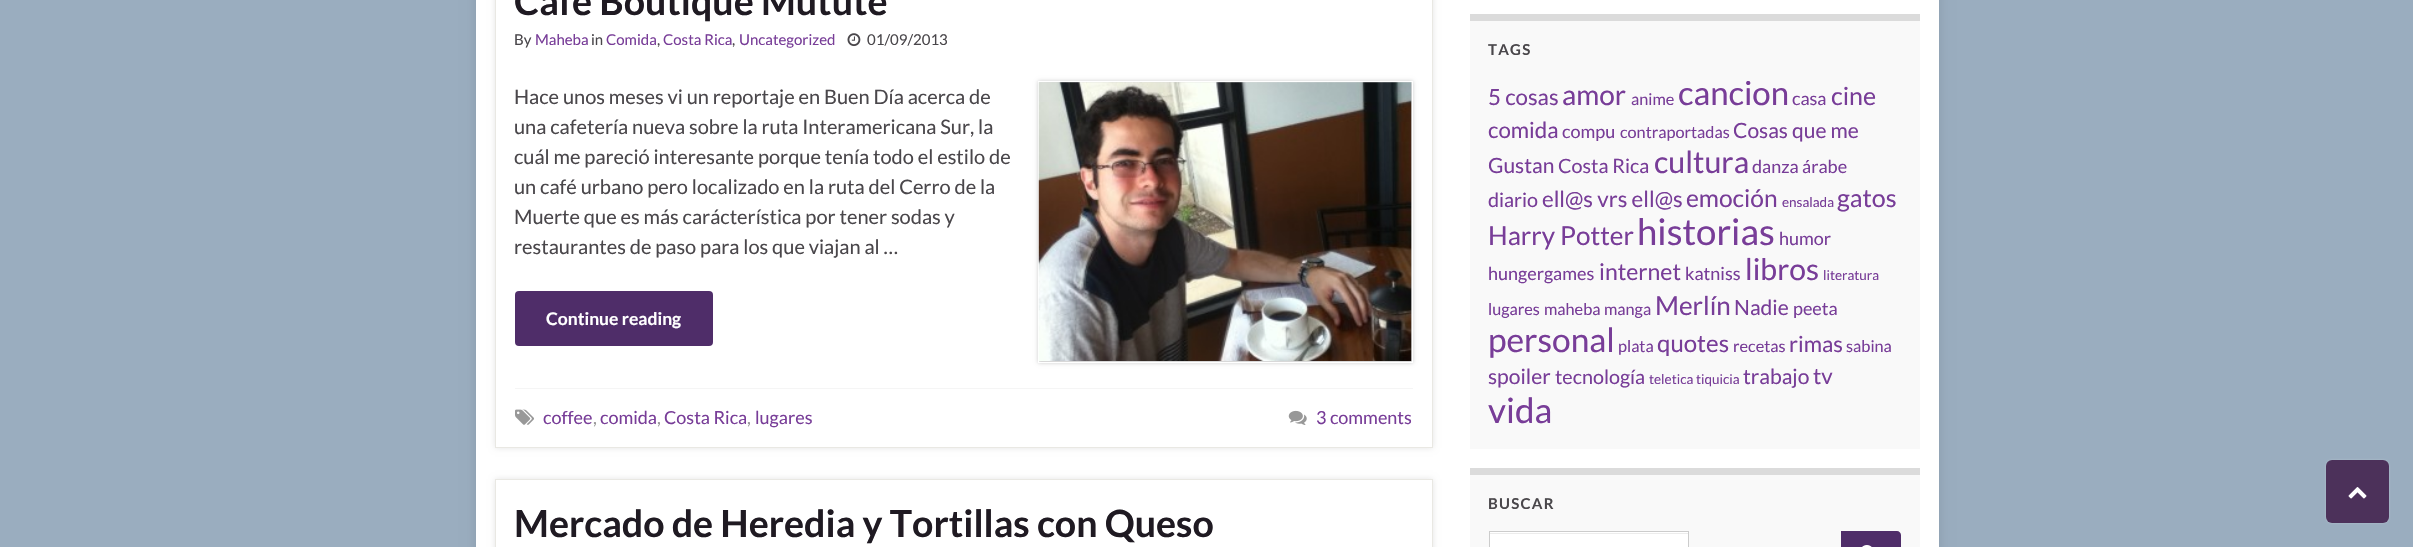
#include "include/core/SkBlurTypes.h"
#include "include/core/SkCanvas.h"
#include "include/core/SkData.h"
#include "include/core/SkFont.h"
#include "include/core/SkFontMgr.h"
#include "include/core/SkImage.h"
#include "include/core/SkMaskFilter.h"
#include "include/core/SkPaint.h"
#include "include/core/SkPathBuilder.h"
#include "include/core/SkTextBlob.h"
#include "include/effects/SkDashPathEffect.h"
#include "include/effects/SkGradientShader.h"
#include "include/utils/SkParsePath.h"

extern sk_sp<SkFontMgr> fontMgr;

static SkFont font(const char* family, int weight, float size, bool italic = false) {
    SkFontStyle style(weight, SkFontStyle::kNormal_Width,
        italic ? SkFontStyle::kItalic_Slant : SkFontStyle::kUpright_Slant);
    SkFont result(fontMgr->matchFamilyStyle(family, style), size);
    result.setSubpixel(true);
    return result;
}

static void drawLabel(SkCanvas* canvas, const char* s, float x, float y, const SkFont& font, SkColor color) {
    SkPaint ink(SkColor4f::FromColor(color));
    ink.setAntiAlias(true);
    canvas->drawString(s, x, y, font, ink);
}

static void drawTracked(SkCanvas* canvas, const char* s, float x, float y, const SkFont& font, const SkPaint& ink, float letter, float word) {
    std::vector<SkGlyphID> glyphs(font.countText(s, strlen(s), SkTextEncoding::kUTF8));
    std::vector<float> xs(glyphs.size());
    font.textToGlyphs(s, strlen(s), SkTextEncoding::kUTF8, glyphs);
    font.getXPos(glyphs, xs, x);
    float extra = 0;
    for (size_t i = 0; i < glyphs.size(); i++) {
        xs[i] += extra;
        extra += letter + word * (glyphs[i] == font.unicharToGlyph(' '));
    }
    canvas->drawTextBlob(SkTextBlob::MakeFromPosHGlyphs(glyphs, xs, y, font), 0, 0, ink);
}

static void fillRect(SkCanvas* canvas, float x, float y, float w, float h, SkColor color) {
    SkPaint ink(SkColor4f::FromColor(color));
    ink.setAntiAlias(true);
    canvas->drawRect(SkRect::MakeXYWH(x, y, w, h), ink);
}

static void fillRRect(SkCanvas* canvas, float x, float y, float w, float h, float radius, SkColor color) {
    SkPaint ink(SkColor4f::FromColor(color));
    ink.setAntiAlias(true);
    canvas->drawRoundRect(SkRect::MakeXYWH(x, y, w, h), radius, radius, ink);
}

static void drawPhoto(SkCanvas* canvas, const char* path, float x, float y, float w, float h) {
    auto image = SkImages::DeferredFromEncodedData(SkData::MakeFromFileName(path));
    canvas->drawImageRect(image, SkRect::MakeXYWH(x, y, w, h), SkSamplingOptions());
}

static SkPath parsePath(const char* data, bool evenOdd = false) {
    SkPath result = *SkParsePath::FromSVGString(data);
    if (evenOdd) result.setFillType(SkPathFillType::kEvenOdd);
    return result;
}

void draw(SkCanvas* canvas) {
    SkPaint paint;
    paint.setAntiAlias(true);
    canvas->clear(0xFF9AADBF);
    paint.setColor(0x1A000000);
    paint.setMaskFilter(SkMaskFilter::MakeBlur(kNormal_SkBlurStyle, 6));
    canvas->drawRect(SkRect::MakeXYWH(476, -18, 1463, 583), paint);
    paint.setMaskFilter(nullptr);
    fillRect(canvas, 476, 0, 1463, 547, 0xFFFFFFFF);
    paint.setMaskFilter(SkMaskFilter::MakeBlur(kNormal_SkBlurStyle, 3));
    canvas->drawRect(SkRect::MakeXYWH(495, -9, 938, 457), paint);
    paint.setMaskFilter(nullptr);
    paint.setColor(0xFFFFFFFF);
    canvas->drawRect(SkRect::MakeXYWH(495.5f, -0.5f, 937, 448), paint);
    paint.setStroke(true);
    paint.setStrokeWidth(1);
    paint.setColor(0xFFE9E8E3);
    canvas->drawRect(SkRect::MakeXYWH(495.5f, -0.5f, 937, 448), paint);
    SkFont font1 = font("Lato", 700, 37.5f);
    drawLabel(canvas, "Café Boutique Mutute", 514, 15, font1, 0xFF1F1A22);
    SkFont font2 = font("Lato", 400, 15);
    drawLabel(canvas, "By", 514, 45, font2, 0xFF4A474B);
    drawLabel(canvas, "Maheba", 535, 45, font2, 0xFF783D98);
    drawLabel(canvas, "in", 591, 45, font2, 0xFF4A474B);
    drawLabel(canvas, "Comida", 606, 45, font2, 0xFF783D98);
    drawLabel(canvas, ",", 657, 45, font2, 0xFF4A474B);
    drawLabel(canvas, "Costa Rica", 663, 45, font2, 0xFF783D98);
    drawLabel(canvas, ",", 732, 45, font2, 0xFF4A474B);
    drawLabel(canvas, "Uncategorized", 739, 45, font2, 0xFF783D98);
    drawPhoto(canvas, "assets/img1.png", 847, 33, 14, 14);
    drawLabel(canvas, "01/09/2013", 867, 45, font2, 0xFF4A474B);
    SkFont font3 = font("Lato", 400, 20);
    drawLabel(canvas, "Hace unos meses vi un reportaje en Buen Día acerca de", 514, 104, font3, 0xFF4A474B);
    drawLabel(canvas, "una cafetería nueva sobre la ruta Interamericana Sur, la", 514, 134, font3, 0xFF4A474B);
    drawLabel(canvas, "cuál me pareció interesante porque tenía todo el estilo de", 514, 164, font3, 0xFF4A474B);
    drawLabel(canvas, "un café urbano pero localizado en la ruta del Cerro de la", 514, 194, font3, 0xFF4A474B);
    drawLabel(canvas, "Muerte que es más carácterística por tener sodas y", 514, 224, font3, 0xFF4A474B);
    drawLabel(canvas, "restaurantes de paso para los que viajan al …", 514, 254, font3, 0xFF4A474B);
    paint.setStroke(false);
    paint.setColor(0x33000000);
    paint.setMaskFilter(SkMaskFilter::MakeBlur(kNormal_SkBlurStyle, 2));
    canvas->drawRect(SkRect::MakeXYWH(1038, 81, 375, 282), paint);
    paint.setMaskFilter(nullptr);
    paint.setStroke(true);
    paint.setColor(0xFFFFFFFF);
    canvas->drawRect(SkRect::MakeXYWH(1038.5f, 81.5f, 374, 281), paint);
    drawPhoto(canvas, "assets/img2.png", 1038, 82, 374, 279);
    fillRRect(canvas, 515, 291, 198, 55, 4, 0xFF4F2D69);
    SkFont font4 = font("Lato", 700, 17.5f);
    drawLabel(canvas, "Continue reading", 546, 325, font4, 0xFFFFFFFF);
    fillRect(canvas, 515, 388, 898, 1, 0xFFF5F5F5);
    drawPhoto(canvas, "assets/img3.png", 515, 409, 19, 16);
    SkFont font5 = font("Lato", 400, 18);
    drawLabel(canvas, "coffee", 543, 424, font5, 0xFF783D98);
    drawLabel(canvas, ",", 593, 424, font5, 0xFF989898);
    drawLabel(canvas, "comida", 600, 424, font5, 0xFF783D98);
    drawLabel(canvas, ",", 657, 424, font5, 0xFF989898);
    drawLabel(canvas, "Costa Rica", 664, 424, font5, 0xFF783D98);
    drawLabel(canvas, ",", 747, 424, font5, 0xFF989898);
    drawLabel(canvas, "lugares", 755, 424, font5, 0xFF783D98);
    drawPhoto(canvas, "assets/img4.png", 1288, 410, 19, 15);
    drawLabel(canvas, "3 comments", 1316, 424, font5, 0xFF783D98);
    paint.setStroke(false);
    paint.setColor(0x1A000000);
    paint.setMaskFilter(SkMaskFilter::MakeBlur(kNormal_SkBlurStyle, 3));
    canvas->drawRect(SkRect::MakeXYWH(495, 479, 938, 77), paint);
    paint.setMaskFilter(nullptr);
    paint.setColor(0xFFFFFFFF);
    canvas->drawRect(SkRect::MakeXYWH(495.5f, 479.5f, 937, 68), paint);
    paint.setStroke(true);
    paint.setColor(0xFFE9E8E3);
    canvas->drawRect(SkRect::MakeXYWH(495.5f, 479.5f, 937, 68), paint);
    drawLabel(canvas, "Mercado de Heredia y Tortillas con Queso", 514, 537, font1, 0xFF1F1A22);
    fillRect(canvas, 1470, 21, 450, 428, 0xFFF9F9F9);
    fillRect(canvas, 1470, 14, 450, 7, 0xFFDBDBDB);
    SkFont font6 = font("Lato", 700, 15);
    paint.setStroke(false);
    paint.setColor(0xFF4A474B);
    drawTracked(canvas, "TAGS", 1488, 55, font6, paint, 1.25f, 0);
    SkFont font7 = font("Lato", 400, 22.25f);
    drawLabel(canvas, "5 cosas", 1488, 105, font7, 0xFF783D98);
    SkFont font8 = font("Lato", 400, 28);
    drawLabel(canvas, "amor", 1562, 105, font8, 0xFF783D98);
    SkFont font9 = font("Lato", 400, 16.25f);
    drawLabel(canvas, "anime", 1631, 105, font9, 0xFF783D98);
    SkFont font10 = font("Lato", 400, 33);
    drawLabel(canvas, "cancion", 1678, 105, font10, 0xFF783D98);
    drawLabel(canvas, "casa", 1792, 105, font5, 0xFF783D98);
    SkFont font11 = font("Lato", 400, 25);
    drawLabel(canvas, "cine", 1831, 105, font11, 0xFF783D98);
    drawLabel(canvas, "comida", 1488, 138, font7, 0xFF783D98);
    drawLabel(canvas, "compu", 1562, 138, font5, 0xFF783D98);
    drawLabel(canvas, "contraportadas", 1620, 138, font9, 0xFF783D98);
    SkFont font12 = font("Lato", 400, 21);
    drawLabel(canvas, "Cosas que me", 1733, 138, font12, 0xFF783D98);
    drawLabel(canvas, "Gustan", 1488, 173, font12, 0xFF783D98);
    SkFont font13 = font("Lato", 400, 19.75f);
    drawLabel(canvas, "Costa Rica", 1558, 173, font13, 0xFF783D98);
    SkFont font14 = font("Lato", 400, 30.5f);
    drawLabel(canvas, "cultura", 1654, 173, font14, 0xFF783D98);
    drawLabel(canvas, "danza árabe", 1752, 173, font5, 0xFF783D98);
    drawLabel(canvas, "diario", 1488, 207, font13, 0xFF783D98);
    drawLabel(canvas, "ell@s vrs ell@s", 1542, 207, font7, 0xFF783D98);
    SkFont font15 = font("Lato", 400, 24.5f);
    drawLabel(canvas, "emoción", 1686, 207, font15, 0xFF783D98);
    SkFont font16 = font("Lato", 400, 13.5f);
    drawLabel(canvas, "ensalada", 1782, 207, font16, 0xFF783D98);
    drawLabel(canvas, "gatos", 1837, 207, font11, 0xFF783D98);
    SkFont font17 = font("Lato", 400, 26);
    drawLabel(canvas, "Harry Potter", 1488, 245, font17, 0xFF783D98);
    SkFont font18 = font("Lato", 400, 36.5f);
    drawLabel(canvas, "historias", 1637, 245, font18, 0xFF783D98);
    drawLabel(canvas, "humor", 1779, 245, font5, 0xFF783D98);
    drawLabel(canvas, "hungergames", 1488, 280, font5, 0xFF783D98);
    SkFont font19 = font("Lato", 400, 23);
    drawLabel(canvas, "internet", 1599, 280, font19, 0xFF783D98);
    drawLabel(canvas, "katniss", 1685, 280, font5, 0xFF783D98);
    SkFont font20 = font("Lato", 400, 30);
    drawLabel(canvas, "libros", 1745, 280, font20, 0xFF783D98);
    drawLabel(canvas, "literatura", 1823, 280, font16, 0xFF783D98);
    drawLabel(canvas, "lugares", 1488, 315, font9, 0xFF783D98);
    drawLabel(canvas, "maheba", 1544, 315, font9, 0xFF783D98);
    drawLabel(canvas, "manga", 1604, 315, font9, 0xFF783D98);
    drawLabel(canvas, "Merlín", 1655, 315, font17, 0xFF783D98);
    drawLabel(canvas, "Nadie", 1734, 315, font12, 0xFF783D98);
    drawLabel(canvas, "peeta", 1793, 315, font5, 0xFF783D98);
    SkFont font21 = font("Lato", 400, 33.5f);
    drawLabel(canvas, "personal", 1488, 352, font21, 0xFF783D98);
    drawLabel(canvas, "plata", 1618, 352, font9, 0xFF783D98);
    SkFont font22 = font("Lato", 400, 24);
    drawLabel(canvas, "quotes", 1657, 352, font22, 0xFF783D98);
    drawLabel(canvas, "recetas", 1733, 352, font9, 0xFF783D98);
    drawLabel(canvas, "rimas", 1789, 352, font7, 0xFF783D98);
    drawLabel(canvas, "sabina", 1846, 352, font9, 0xFF783D98);
    drawLabel(canvas, "spoiler", 1488, 384, font12, 0xFF783D98);
    drawLabel(canvas, "tecnología", 1555, 384, font13, 0xFF783D98);
    drawLabel(canvas, "teletica", 1649, 384, font16, 0xFF783D98);
    drawLabel(canvas, "tiquicia", 1696, 384, font16, 0xFF783D98);
    drawLabel(canvas, "trabajo", 1743, 384, font12, 0xFF783D98);
    drawLabel(canvas, "tv", 1813, 384, font7, 0xFF783D98);
    SkFont font23 = font("Lato", 400, 35);
    drawLabel(canvas, "vida", 1488, 423, font23, 0xFF783D98);
    fillRect(canvas, 1470, 475, 450, 72, 0xFFF9F9F9);
    fillRect(canvas, 1470, 468, 450, 7, 0xFFDBDBDB);
    drawTracked(canvas, "BUSCAR", 1488, 509, font6, paint, 1.25f, 0);
    fillRect(canvas, 1490, 532, 198, 15, 0xFFFFFFFF);
    fillRect(canvas, 1490, 533, 198, 1, 0xFFECECEC);
    paint.setStroke(true);
    paint.setColor(0xFFCCCCCC);
    canvas->drawRect(SkRect::MakeXYWH(1489.5f, 531.5f, 199, 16), paint);
    paint.setStroke(false);
    paint.setColor(0xFF4F2D69);
    canvas->drawPath(parsePath("M1841 531H1897C1899 531 1901 533 1901 535V547C1901 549 1899 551 1897 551H1841Z"), paint);
    drawPhoto(canvas, "assets/img5.png", 1862, 545, 10, 2);
    paint.setColor(0x4DFFFFFF);
    paint.setMaskFilter(SkMaskFilter::MakeBlur(kNormal_SkBlurStyle, 1));
    canvas->drawRoundRect(SkRect::MakeXYWH(2326, 460, 63, 63), 6, 6, paint);
    paint.setMaskFilter(nullptr);
    fillRRect(canvas, 2326, 460, 63, 63, 6, 0xFF4C315A);
    drawPhoto(canvas, "assets/img6.png", 2348, 487, 19, 12);
}
